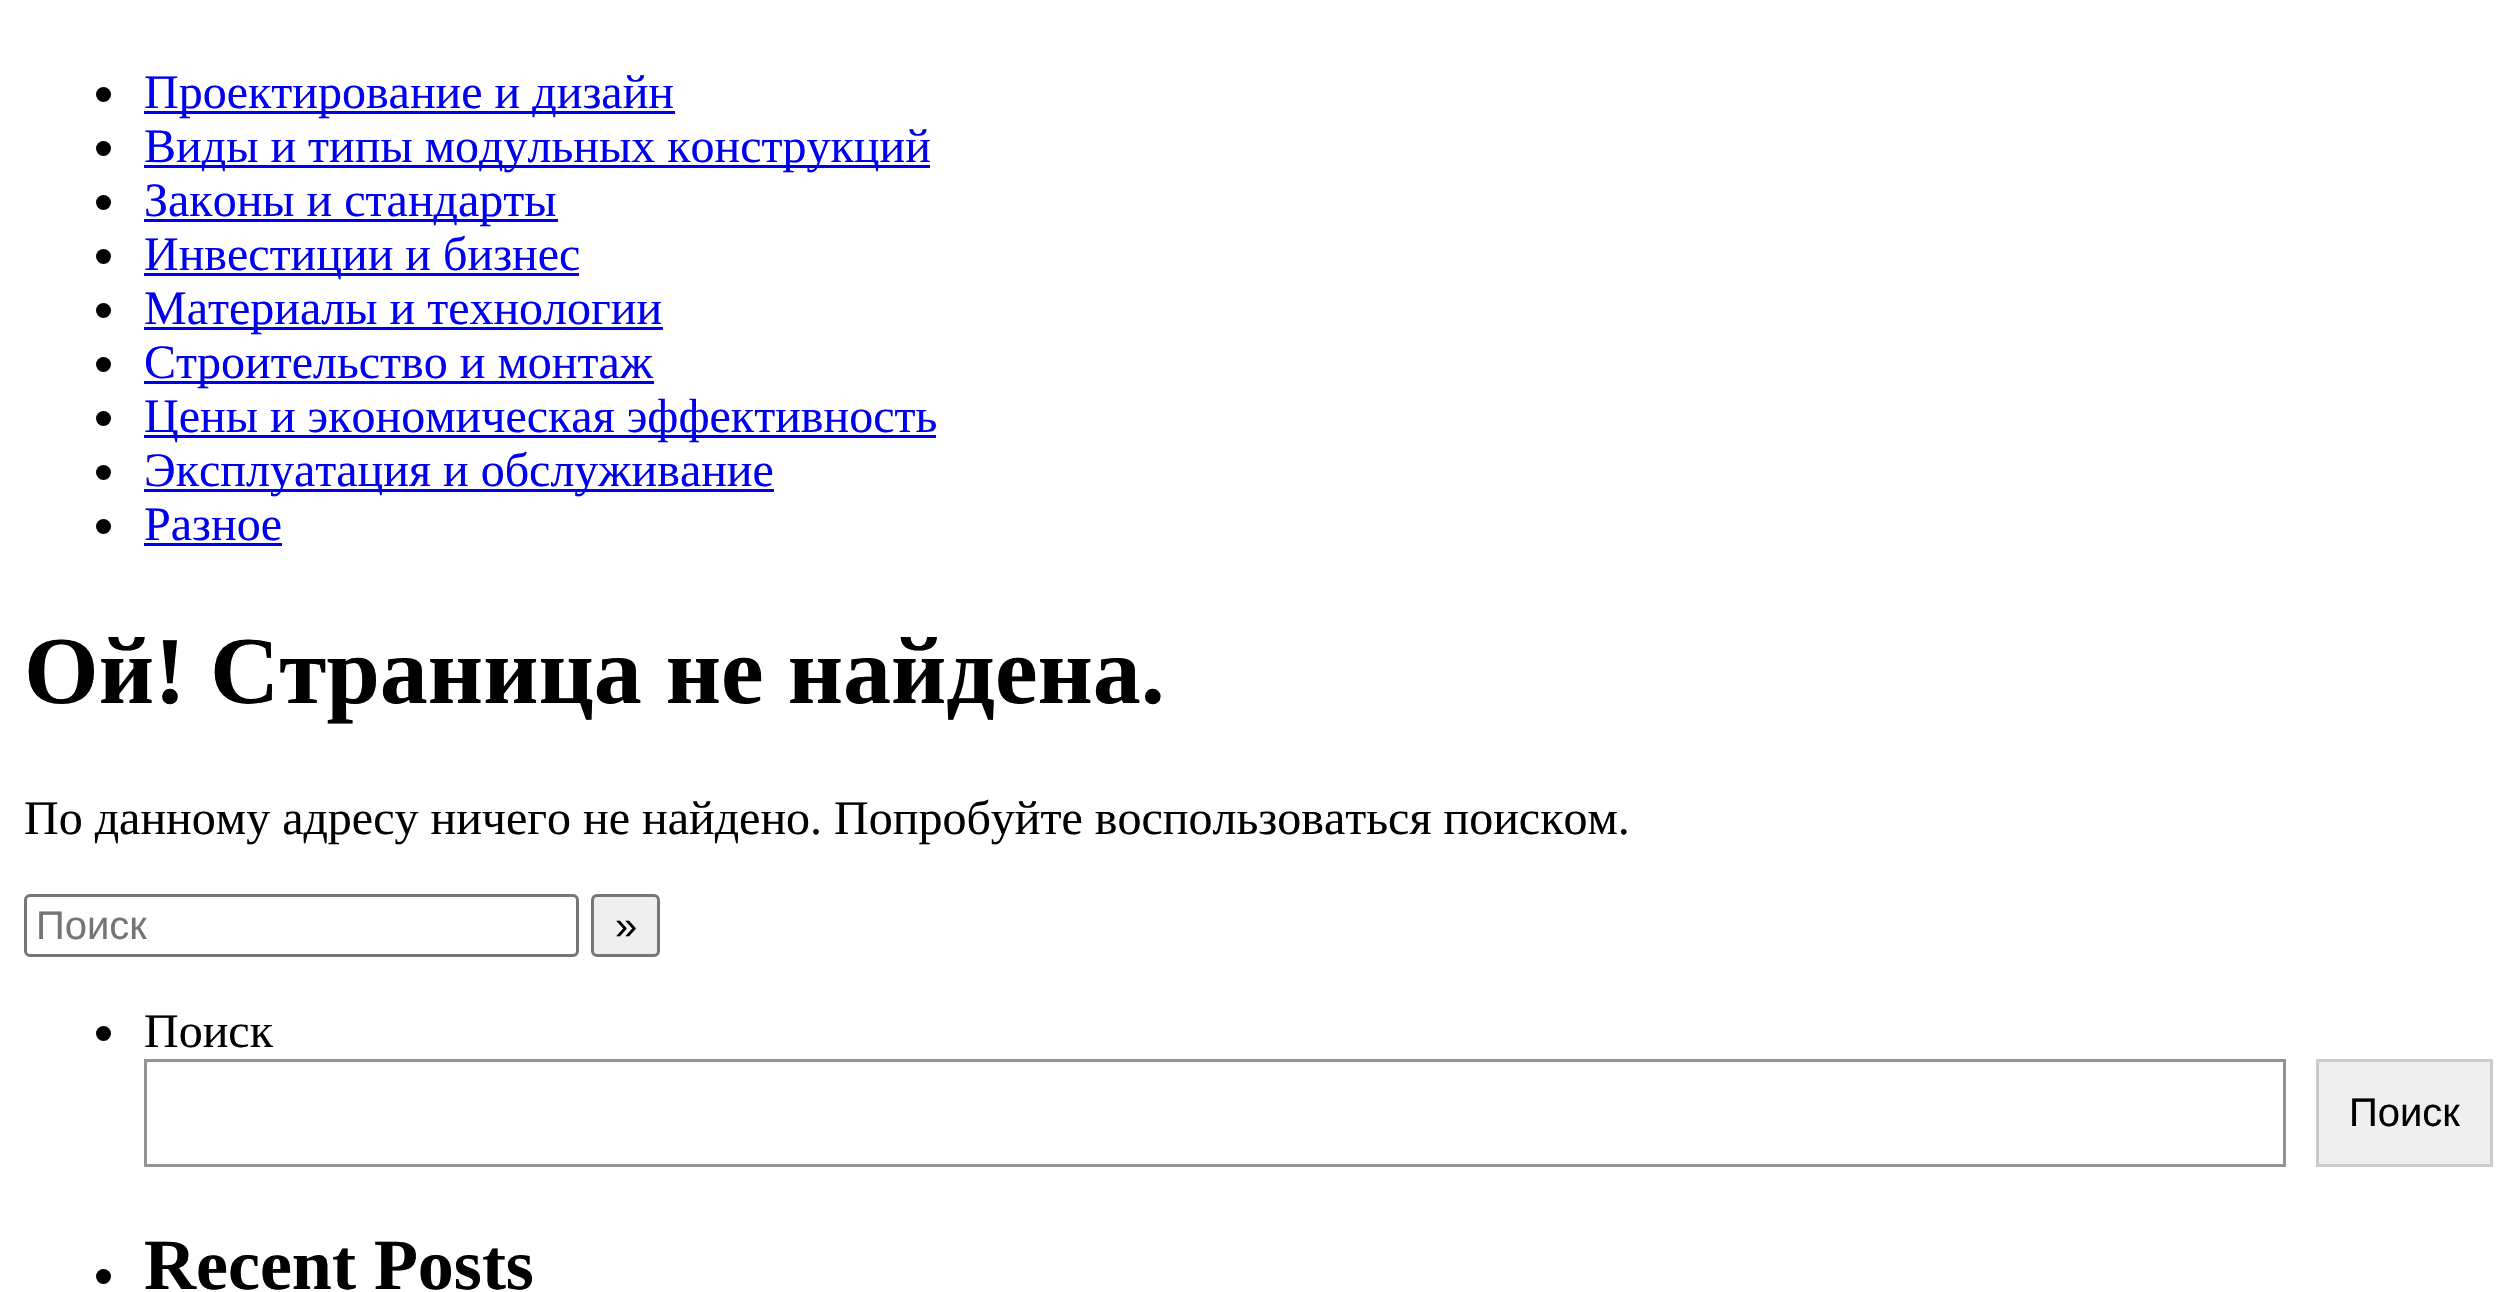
#include "include/core/SkBlurTypes.h"
#include "include/core/SkCanvas.h"
#include "include/core/SkData.h"
#include "include/core/SkFont.h"
#include "include/core/SkFontMgr.h"
#include "include/core/SkImage.h"
#include "include/core/SkMaskFilter.h"
#include "include/core/SkPaint.h"
#include "include/core/SkPathBuilder.h"
#include "include/core/SkTextBlob.h"
#include "include/effects/SkDashPathEffect.h"
#include "include/effects/SkGradientShader.h"
#include "include/utils/SkParsePath.h"

extern sk_sp<SkFontMgr> fontMgr;

static SkFont font(const char* family, int weight, float size, bool italic = false) {
    SkFontStyle style(weight, SkFontStyle::kNormal_Width,
        italic ? SkFontStyle::kItalic_Slant : SkFontStyle::kUpright_Slant);
    SkFont result(fontMgr->matchFamilyStyle(family, style), size);
    result.setSubpixel(true);
    return result;
}

static void drawLabel(SkCanvas* canvas, const char* s, float x, float y, const SkFont& font, SkColor color) {
    SkPaint ink(SkColor4f::FromColor(color));
    ink.setAntiAlias(true);
    canvas->drawString(s, x, y, font, ink);
}

static void fillRect(SkCanvas* canvas, float x, float y, float w, float h, SkColor color) {
    SkPaint ink(SkColor4f::FromColor(color));
    ink.setAntiAlias(true);
    canvas->drawRect(SkRect::MakeXYWH(x, y, w, h), ink);
}

void draw(SkCanvas* canvas) {
    SkPaint paint;
    paint.setAntiAlias(true);
    canvas->clear(0xFFFFFFFF);
    paint.setColor(0xFF000000);
    canvas->drawCircle(103.5f, 94.5f, 7.5f, paint);
    fillRect(canvas, 144, 111, 531, 3, 0xFF0000EE);
    SkFont font1 = font("Liberation Serif", 400, 48);
    drawLabel(canvas, "Проектирование и дизайн", 144, 108, font1, 0xFF0000EE);
    canvas->drawCircle(103.5f, 148.5f, 7.5f, paint);
    fillRect(canvas, 144, 165, 786, 3, 0xFF0000EE);
    drawLabel(canvas, "Виды и типы модульных конструкций", 144, 162, font1, 0xFF0000EE);
    canvas->drawCircle(103.5f, 202.5f, 7.5f, paint);
    fillRect(canvas, 144, 219, 414, 3, 0xFF0000EE);
    drawLabel(canvas, "Законы и стандарты", 144, 216, font1, 0xFF0000EE);
    canvas->drawCircle(103.5f, 256.5f, 7.5f, paint);
    fillRect(canvas, 144, 273, 435, 3, 0xFF0000EE);
    drawLabel(canvas, "Инвестиции и бизнес", 144, 270, font1, 0xFF0000EE);
    canvas->drawCircle(103.5f, 310.5f, 7.5f, paint);
    fillRect(canvas, 144, 327, 519, 3, 0xFF0000EE);
    drawLabel(canvas, "Материалы и технологии", 144, 324, font1, 0xFF0000EE);
    canvas->drawCircle(103.5f, 364.5f, 7.5f, paint);
    fillRect(canvas, 144, 381, 510, 3, 0xFF0000EE);
    drawLabel(canvas, "Строительство и монтаж", 144, 378, font1, 0xFF0000EE);
    canvas->drawCircle(103.5f, 418.5f, 7.5f, paint);
    fillRect(canvas, 144, 435, 792, 3, 0xFF0000EE);
    drawLabel(canvas, "Цены и экономическая эффективность", 144, 432, font1, 0xFF0000EE);
    canvas->drawCircle(103.5f, 472.5f, 7.5f, paint);
    fillRect(canvas, 144, 489, 630, 3, 0xFF0000EE);
    drawLabel(canvas, "Эксплуатация и обслуживание", 144, 486, font1, 0xFF0000EE);
    canvas->drawCircle(103.5f, 526.5f, 7.5f, paint);
    drawLabel(canvas, "Разное", 144, 540, font1, 0xFF0000EE);
    fillRect(canvas, 144, 543, 138, 3, 0xFF0000EE);
    SkFont font2 = font("Liberation Serif", 700, 96);
    drawLabel(canvas, "Ой! Страница не найдена.", 24, 703, font2, 0xFF000000);
    drawLabel(canvas, "По данному адресу ничего не найдено. Попробуйте воспользоваться поиском.", 24, 834, font1, 0xFF000000);
    paint.setStroke(true);
    paint.setStrokeWidth(3);
    paint.setColor(0xFF767676);
    canvas->drawRoundRect(SkRect::MakeXYWH(25.5f, 895.5f, 552, 60), 4.5f, 4.5f, paint);
    SkFont font3 = font("Liberation Sans", 400, 40);
    drawLabel(canvas, "Поиск", 36, 939, font3, 0xFF757575);
    paint.setStroke(false);
    paint.setColor(0xFFEFEFEF);
    canvas->drawRoundRect(SkRect::MakeXYWH(592.5f, 895.5f, 66, 60), 4.5f, 4.5f, paint);
    paint.setStroke(true);
    paint.setColor(0xFF767676);
    canvas->drawRoundRect(SkRect::MakeXYWH(592.5f, 895.5f, 66, 60), 4.5f, 4.5f, paint);
    drawLabel(canvas, "»", 615, 939, font3, 0xFF000000);
    paint.setStroke(false);
    paint.setColor(0xFF000000);
    canvas->drawCircle(103.5f, 1033.5f, 7.5f, paint);
    drawLabel(canvas, "Поиск", 144, 1047, font1, 0xFF000000);
    paint.setStroke(true);
    paint.setColor(0xFF949494);
    canvas->drawRect(SkRect::MakeXYWH(145.5f, 1060.5f, 2139, 105), paint);
    paint.setStroke(false);
    paint.setColor(0xFFEFEFEF);
    canvas->drawRect(SkRect::MakeXYWH(2317.5f, 1060.5f, 174, 105), paint);
    paint.setStroke(true);
    paint.setColor(0xFFCCCCCC);
    canvas->drawRect(SkRect::MakeXYWH(2317.5f, 1060.5f, 174, 105), paint);
    drawLabel(canvas, "Поиск", 2349, 1126, font3, 0xFF000000);
    paint.setStroke(false);
    paint.setColor(0xFF000000);
    canvas->drawCircle(103.5f, 1276.5f, 7.5f, paint);
    SkFont font4 = font("Liberation Serif", 700, 72);
    drawLabel(canvas, "Recent Posts", 144, 1289, font4, 0xFF000000);
}
